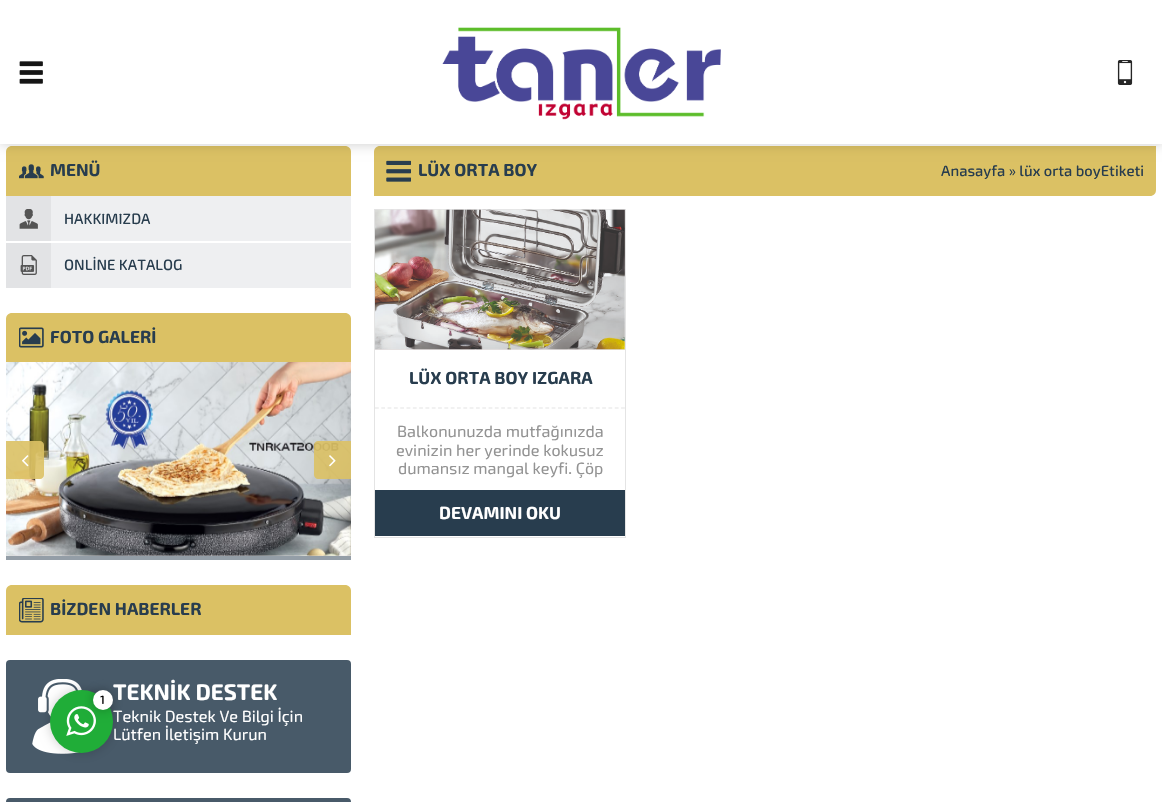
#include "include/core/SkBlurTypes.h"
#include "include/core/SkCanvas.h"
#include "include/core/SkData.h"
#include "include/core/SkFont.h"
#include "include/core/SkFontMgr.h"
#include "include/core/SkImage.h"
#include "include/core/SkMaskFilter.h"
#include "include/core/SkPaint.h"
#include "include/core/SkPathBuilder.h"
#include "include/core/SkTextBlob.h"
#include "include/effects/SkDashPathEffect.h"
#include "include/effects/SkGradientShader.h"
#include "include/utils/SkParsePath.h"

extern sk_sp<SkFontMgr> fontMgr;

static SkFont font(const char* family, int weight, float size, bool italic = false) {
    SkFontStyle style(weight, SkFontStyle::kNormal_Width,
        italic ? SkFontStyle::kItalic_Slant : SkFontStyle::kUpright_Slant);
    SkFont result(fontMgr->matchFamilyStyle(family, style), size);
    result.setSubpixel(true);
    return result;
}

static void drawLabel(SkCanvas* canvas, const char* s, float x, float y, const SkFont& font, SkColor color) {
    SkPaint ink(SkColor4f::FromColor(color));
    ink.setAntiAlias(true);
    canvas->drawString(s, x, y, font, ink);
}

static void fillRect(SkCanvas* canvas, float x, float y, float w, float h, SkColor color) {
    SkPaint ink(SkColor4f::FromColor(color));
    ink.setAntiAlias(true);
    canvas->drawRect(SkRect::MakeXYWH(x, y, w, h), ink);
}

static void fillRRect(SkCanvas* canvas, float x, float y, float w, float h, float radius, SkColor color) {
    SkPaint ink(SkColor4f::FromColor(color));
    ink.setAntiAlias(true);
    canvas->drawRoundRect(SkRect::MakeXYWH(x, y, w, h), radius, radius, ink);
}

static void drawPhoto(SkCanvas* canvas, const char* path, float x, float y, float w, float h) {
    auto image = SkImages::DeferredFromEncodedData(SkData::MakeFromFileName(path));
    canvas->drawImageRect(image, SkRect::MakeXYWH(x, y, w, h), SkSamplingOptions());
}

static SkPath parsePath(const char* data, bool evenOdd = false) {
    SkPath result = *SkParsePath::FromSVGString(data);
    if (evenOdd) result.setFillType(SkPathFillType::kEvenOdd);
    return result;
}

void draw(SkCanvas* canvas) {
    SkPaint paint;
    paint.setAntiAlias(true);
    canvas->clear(0xFFFFFFFF);
    paint.setColor(0xFFDBC164);
    canvas->drawPath(parsePath("M12 146H345C348.5 146 351 148.5 351 152V196H6V152C6 148.5 8.5 146 12 146Z"), paint);
    canvas->drawPath(parsePath("M380 146H1156V190C1156 193.5 1153.5 196 1150 196H374V152C374 148.5 376.5 146 380 146Z"), paint);
    drawPhoto(canvas, "assets/img13.png", 386, 160, 25, 22);
    paint.setColor(0x33000000);
    paint.setMaskFilter(SkMaskFilter::MakeBlur(kNormal_SkBlurStyle, 6));
    canvas->drawRect(SkRect::MakeXYWH(0, 0, 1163, 144), paint);
    paint.setMaskFilter(nullptr);
    fillRect(canvas, 0, 0, 1162, 144, 0xFFFFFFFF);
    drawPhoto(canvas, "assets/img1.png", 19, 61, 24, 23);
    drawPhoto(canvas, "assets/img2.png", 442, 27, 279, 93);
    drawPhoto(canvas, "assets/img3.png", 1117, 60, 16, 25);
    drawPhoto(canvas, "assets/img4.png", 19, 164, 25, 15);
    SkFont font1 = font("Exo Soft", 700, 17.5f);
    drawLabel(canvas, "MENÜ", 50, 176, font1, 0xFF283D4E);
    fillRect(canvas, 51, 196, 300, 45, 0xFFEEEFF1);
    fillRect(canvas, 6, 196, 45, 45, 0xFFE2E3E5);
    drawPhoto(canvas, "assets/img5.png", 19, 209, 19, 20);
    SkFont font2 = font("Exo Soft", 500, 15);
    drawLabel(canvas, "HAKKIMIZDA", 64, 224, font2, 0xFF283D4E);
    fillRect(canvas, 51, 243, 300, 45, 0xFFEEEFF1);
    fillRect(canvas, 6, 243, 45, 45, 0xFFE2E3E5);
    drawPhoto(canvas, "assets/img6.png", 20, 255, 17, 20);
    drawLabel(canvas, "ONLİNE KATALOG", 64, 270, font2, 0xFF283D4E);
    paint.setColor(0xFFDBC164);
    canvas->drawPath(parsePath("M12 313H345C348.5 313 351 315.5 351 319V363H6V319C6 315.5 8.5 313 12 313Z"), paint);
    drawPhoto(canvas, "assets/img7.png", 19, 327, 25, 21);
    drawLabel(canvas, "FOTO GALERİ", 50, 343, font1, 0xFF283D4E);
    fillRect(canvas, 6, 556, 345, 4, 0xFF949EA7);
    fillRect(canvas, 6, 555, 345, 1, 0xFFE4DFDF);
    drawPhoto(canvas, "assets/img8.png", 6, 362, 345, 194);
    paint.setColor(0xE6DBC164);
    canvas->drawPath(parsePath("M6 441H40C42 441 44 443 44 445V475C44 477 42 479 40 479H6Z"), paint);
    drawPhoto(canvas, "assets/img9.png", 22, 455, 7, 12);
    canvas->drawPath(parsePath("M318 441H351V479H318C316 479 314 477 314 475V445C314 443 316 441 318 441Z"), paint);
    drawPhoto(canvas, "assets/img10.png", 329, 455, 7, 12);
    paint.setColor(0xFFDBC164);
    canvas->drawPath(parsePath("M12 585H345C348.5 585 351 587.5 351 591V635H6V591C6 587.5 8.5 585 12 585Z"), paint);
    drawPhoto(canvas, "assets/img11.png", 19, 598, 25, 25);
    drawLabel(canvas, "BİZDEN HABERLER", 50, 615, font1, 0xFF283D4E);
    fillRRect(canvas, 6, 660, 345, 113, 4, 0xFF485A69);
    drawPhoto(canvas, "assets/img12.png", 32, 679, 50, 75);
    SkFont font3 = font("Exo Soft", 700, 22.5f);
    drawLabel(canvas, "TEKNİK DESTEK", 113, 700, font3, 0xFFFFFFFF);
    SkFont font4 = font("Exo Soft", 400, 16.25f);
    drawLabel(canvas, "Teknik Destek Ve Bilgi İçin", 113, 722, font4, 0xFFFFFFFF);
    drawLabel(canvas, "Lütfen İletişim Kurun", 113, 740, font4, 0xFFFFFFFF);
    fillRRect(canvas, 6, 798, 345, 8, 4, 0xFF485A69);
    drawLabel(canvas, "LÜX ORTA BOY", 418, 176, font1, 0xFF283D4E);
    drawLabel(canvas, "Anasayfa » lüx orta boyEtiketi", 941, 176, font2, 0xFF283D4E);
    paint.setStroke(true);
    paint.setStrokeWidth(1);
    paint.setColor(0xFFE4E4E4);
    canvas->drawRect(SkRect::MakeXYWH(374.5f, 209.5f, 251, 328), paint);
    fillRect(canvas, 375, 349, 250, 1, 0xFFE4DFDF);
    drawPhoto(canvas, "assets/img14.png", 375, 209, 250, 141);
    paint.setStrokeWidth(1.2f);
    paint.setPathEffect(SkDashPathEffect::Make({{3.75f, 2.56f}}, 0));
    canvas->drawPath(parsePath("M375 408H625"), paint);
    paint.setPathEffect(nullptr);
    drawLabel(canvas, "LÜX ORTA BOY IZGARA", 409, 384, font1, 0xFF283D4E);
    drawLabel(canvas, "Balkonunuzda mutfağınızda", 397, 437, font4, 0xFF939393);
    drawLabel(canvas, "evinizin her yerinde kokusuz", 396, 456, font4, 0xFF939393);
    drawLabel(canvas, "dumansız mangal keyfi. Çöp", 398, 474, font4, 0xFF939393);
    fillRect(canvas, 375, 490, 250, 46, 0xFF283D4E);
    drawLabel(canvas, "DEVAMINI OKU", 439, 519, font1, 0xFFFFFFFF);
    paint.setStroke(false);
    paint.setColor(0x33000000);
    paint.setMaskFilter(SkMaskFilter::MakeBlur(kNormal_SkBlurStyle, 6));
    canvas->drawRoundRect(SkRect::MakeXYWH(50, 690, 63, 63), 31.5f, 31.5f, paint);
    paint.setMaskFilter(nullptr);
    paint.setColor(0xFF20AD38);
    canvas->drawCircle(81.5f, 721.5f, 31.5f, paint);
    drawPhoto(canvas, "assets/img15.png", 66, 706, 30, 30);
    paint.setColor(0x47000000);
    paint.setMaskFilter(SkMaskFilter::MakeBlur(kNormal_SkBlurStyle, 6));
    canvas->drawRoundRect(SkRect::MakeXYWH(93, 690, 20, 20), 10, 10, paint);
    paint.setMaskFilter(nullptr);
    paint.setColor(0xFFFFFFFF);
    canvas->drawCircle(103, 700, 10, paint);
    SkFont font5 = font("Exo Soft", 500, 12);
    drawLabel(canvas, "1", 100, 704, font5, 0xFF000000);
}
